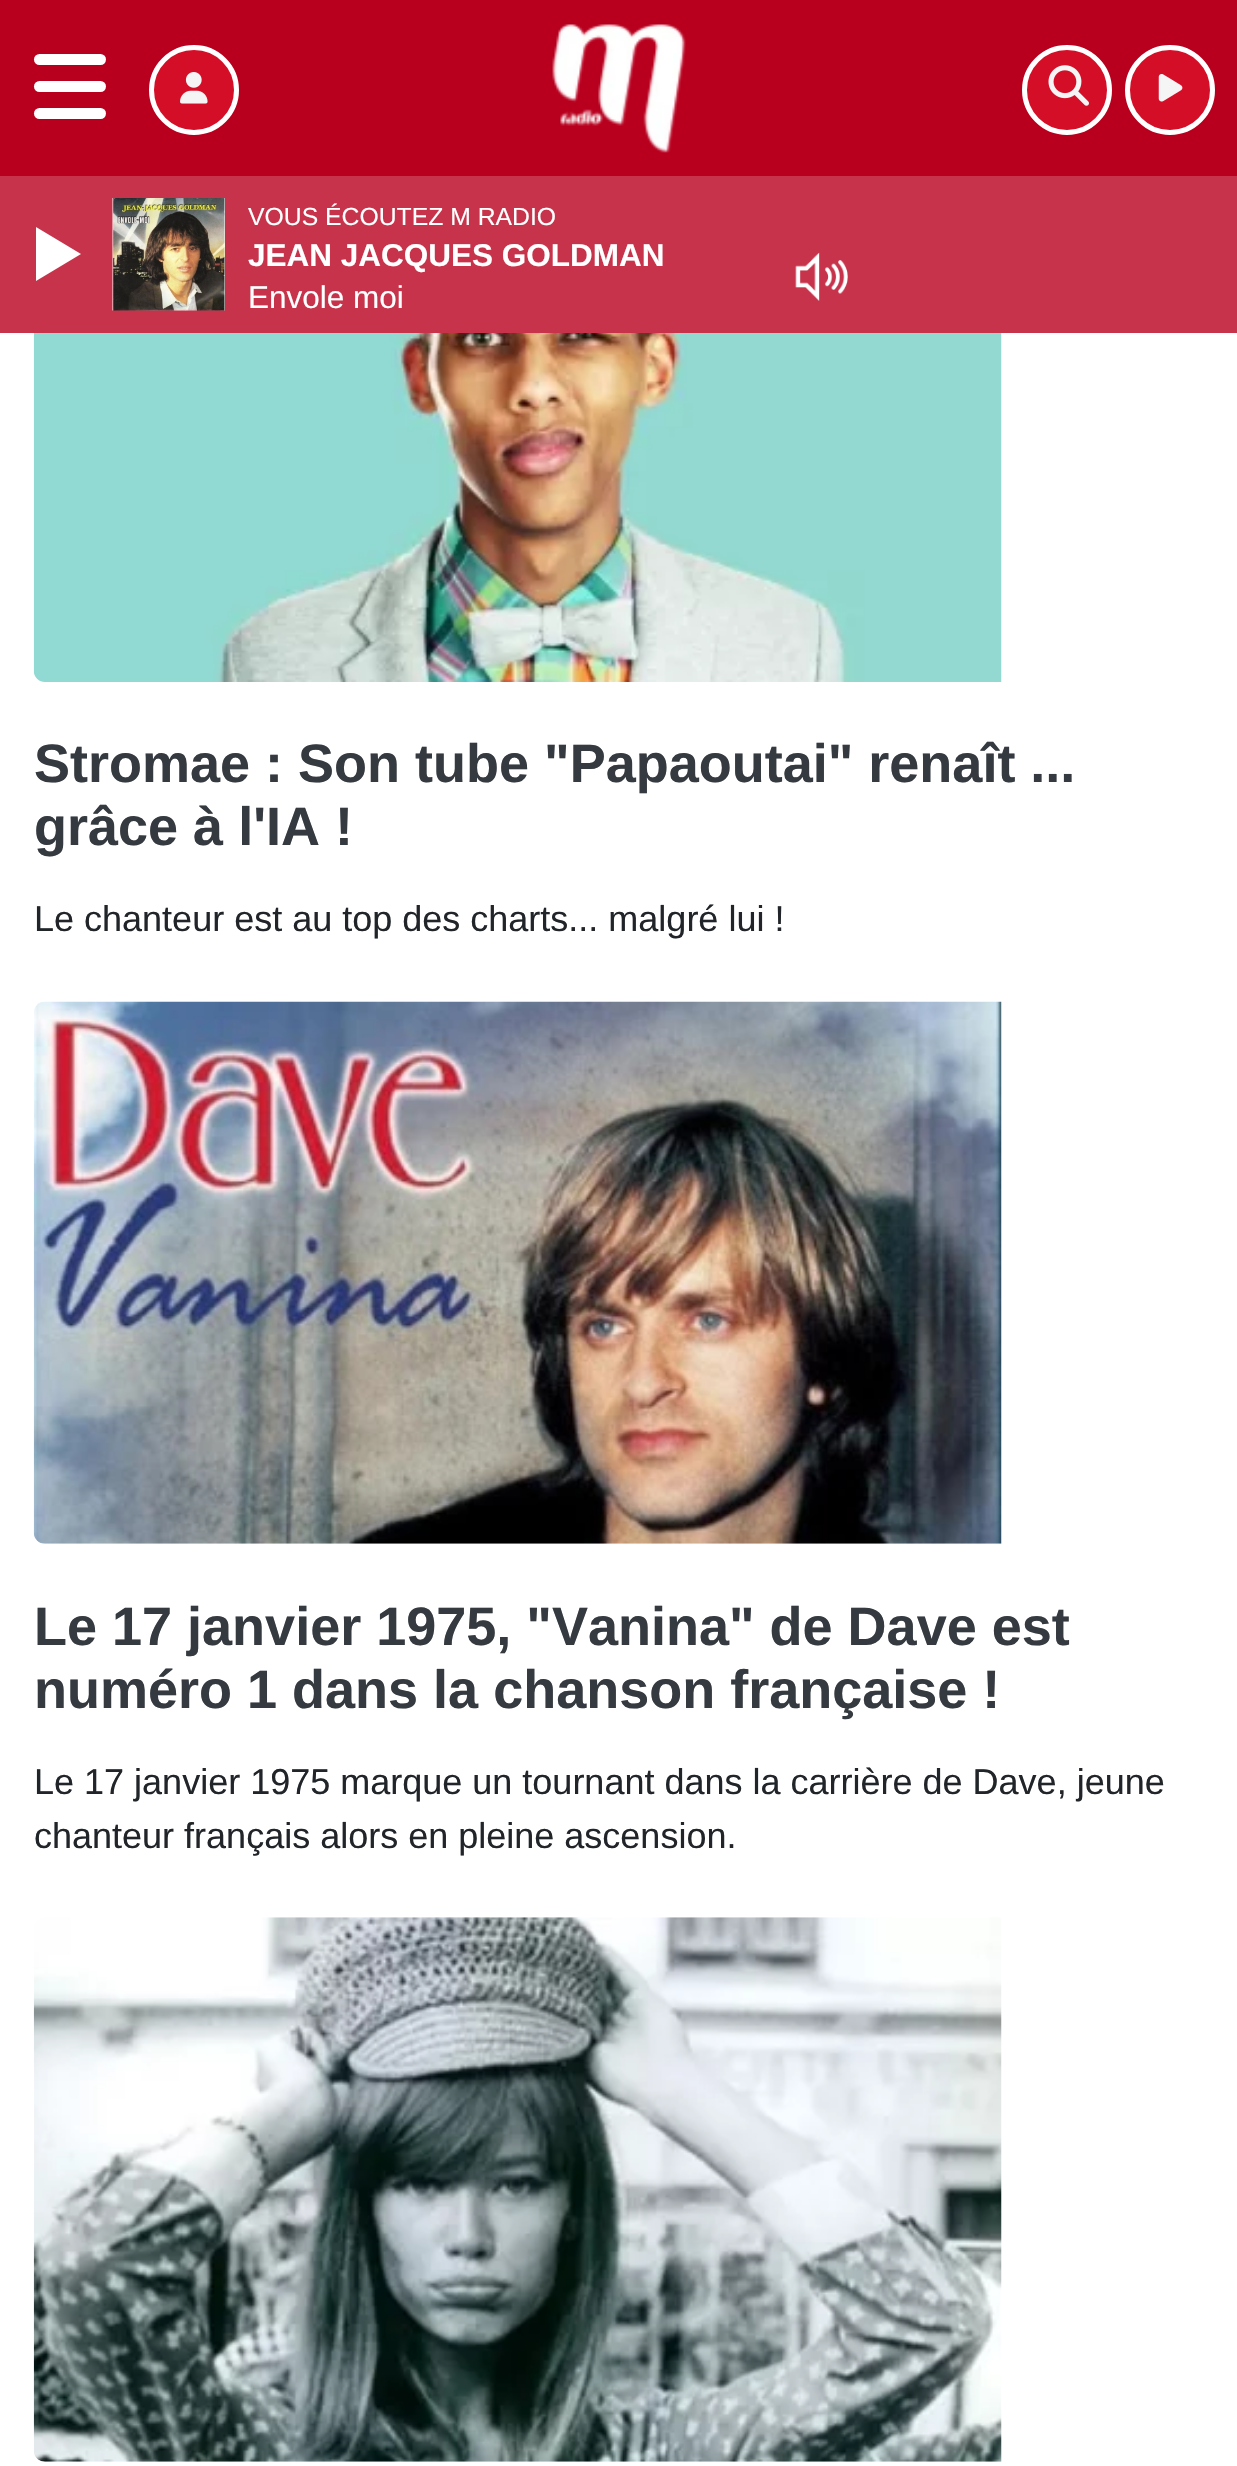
#include "include/core/SkBlurTypes.h"
#include "include/core/SkCanvas.h"
#include "include/core/SkData.h"
#include "include/core/SkFont.h"
#include "include/core/SkFontMgr.h"
#include "include/core/SkImage.h"
#include "include/core/SkMaskFilter.h"
#include "include/core/SkPaint.h"
#include "include/core/SkPathBuilder.h"
#include "include/core/SkTextBlob.h"
#include "include/effects/SkDashPathEffect.h"
#include "include/effects/SkGradientShader.h"
#include "include/utils/SkParsePath.h"

extern sk_sp<SkFontMgr> fontMgr;

static SkFont font(const char* family, int weight, float size, bool italic = false) {
    SkFontStyle style(weight, SkFontStyle::kNormal_Width,
        italic ? SkFontStyle::kItalic_Slant : SkFontStyle::kUpright_Slant);
    SkFont result(fontMgr->matchFamilyStyle(family, style), size);
    result.setSubpixel(true);
    return result;
}

static void drawLabel(SkCanvas* canvas, const char* s, float x, float y, const SkFont& font, SkColor color) {
    SkPaint ink(SkColor4f::FromColor(color));
    ink.setAntiAlias(true);
    canvas->drawString(s, x, y, font, ink);
}

static void fillRect(SkCanvas* canvas, float x, float y, float w, float h, SkColor color) {
    SkPaint ink(SkColor4f::FromColor(color));
    ink.setAntiAlias(true);
    canvas->drawRect(SkRect::MakeXYWH(x, y, w, h), ink);
}

static void fillRRect(SkCanvas* canvas, float x, float y, float w, float h, float radius, SkColor color) {
    SkPaint ink(SkColor4f::FromColor(color));
    ink.setAntiAlias(true);
    canvas->drawRoundRect(SkRect::MakeXYWH(x, y, w, h), radius, radius, ink);
}

static void drawPhoto(SkCanvas* canvas, const char* path, float x, float y, float w, float h) {
    auto image = SkImages::DeferredFromEncodedData(SkData::MakeFromFileName(path));
    canvas->drawImageRect(image, SkRect::MakeXYWH(x, y, w, h), SkSamplingOptions());
}

static SkPath parsePath(const char* data, bool evenOdd = false) {
    SkPath result = *SkParsePath::FromSVGString(data);
    if (evenOdd) result.setFillType(SkPathFillType::kEvenOdd);
    return result;
}

void draw(SkCanvas* canvas) {
    SkPaint paint;
    paint.setAntiAlias(true);
    canvas->clear(0xFFFFFFFF);
    fillRect(canvas, 0, 176, 1237, 157, 0xFFC6334B);
    drawPhoto(canvas, "assets/img1.png", 112, 198, 113, 113);
    SkFont font1 = font("Liberation Sans", 400, 24.75f);
    drawLabel(canvas, "VOUS ÉCOUTEZ M RADIO", 248, 225, font1, 0xFFFFFFFF);
    SkFont font2 = font("Liberation Sans", 700, 31.5f);
    drawLabel(canvas, "JEAN JACQUES GOLDMAN", 248, 266, font2, 0xFFFFFFFF);
    SkFont font3 = font("Liberation Sans", 400, 31.5f);
    drawLabel(canvas, "Envole moi", 248, 308, font3, 0xFFFFFFFF);
    paint.setColor(0xFFFFFFFF);
    canvas->drawPath(parsePath("M36 281V227L81 254Z"), paint);
    drawPhoto(canvas, "assets/img2.png", 795, 252, 53, 49);
    fillRect(canvas, 0, 0, 1237, 176, 0xFFB8001E);
    fillRRect(canvas, 34, 54, 72, 11, 5.5f, 0xFFFFFFFF);
    fillRRect(canvas, 34, 81, 72, 11, 5.5f, 0xFFFFFFFF);
    fillRRect(canvas, 34, 108, 72, 11, 5.5f, 0xFFFFFFFF);
    paint.setColor(0xFFD50E28);
    canvas->drawCircle(194, 90, 42.5f, paint);
    paint.setStroke(true);
    paint.setStrokeWidth(5);
    paint.setColor(0xFFFFFFFF);
    canvas->drawCircle(194, 90, 42.5f, paint);
    drawPhoto(canvas, "assets/img3.png", 180, 72, 28, 32);
    drawPhoto(canvas, "assets/img4.png", 552, 24, 134, 129);
    paint.setStroke(false);
    paint.setColor(0xFFD50E28);
    canvas->drawCircle(1067, 90, 42.5f, paint);
    paint.setStroke(true);
    paint.setColor(0xFFFFFFFF);
    canvas->drawCircle(1067, 90, 42.5f, paint);
    drawPhoto(canvas, "assets/img5.png", 1048, 65, 41, 41);
    paint.setStroke(false);
    paint.setColor(0xFFD50E28);
    canvas->drawCircle(1170, 90, 42.5f, paint);
    paint.setStroke(true);
    paint.setColor(0xFFFFFFFF);
    canvas->drawCircle(1170, 90, 42.5f, paint);
    drawPhoto(canvas, "assets/img6.png", 1158, 74, 25, 28);
    drawPhoto(canvas, "assets/img7.png", 33, 333, 969, 349);
    SkFont font4 = font("Liberation Sans", 700, 54);
    drawLabel(canvas, "Stromae : Son tube \"Papaoutai\" renaît ...", 34, 782, font4, 0xFF343A40);
    drawLabel(canvas, "grâce à l'IA !", 34, 845, font4, 0xFF343A40);
    SkFont font5 = font("Liberation Sans", 400, 36);
    drawLabel(canvas, "Le chanteur est au top des charts... malgré lui !", 34, 931, font5, 0xFF212529);
    drawPhoto(canvas, "assets/img8.png", 33, 1001, 969, 543);
    drawLabel(canvas, "Le 17 janvier 1975, \"Vanina\" de Dave est", 34, 1645, font4, 0xFF343A40);
    drawLabel(canvas, "numéro 1 dans la chanson française !", 34, 1708, font4, 0xFF343A40);
    drawLabel(canvas, "Le 17 janvier 1975 marque un tournant dans la carrière de Dave, jeune", 34, 1794, font5, 0xFF212529);
    drawLabel(canvas, "chanteur français alors en pleine ascension.", 34, 1848, font5, 0xFF212529);
    drawPhoto(canvas, "assets/img9.png", 33, 1917, 969, 545);
}
